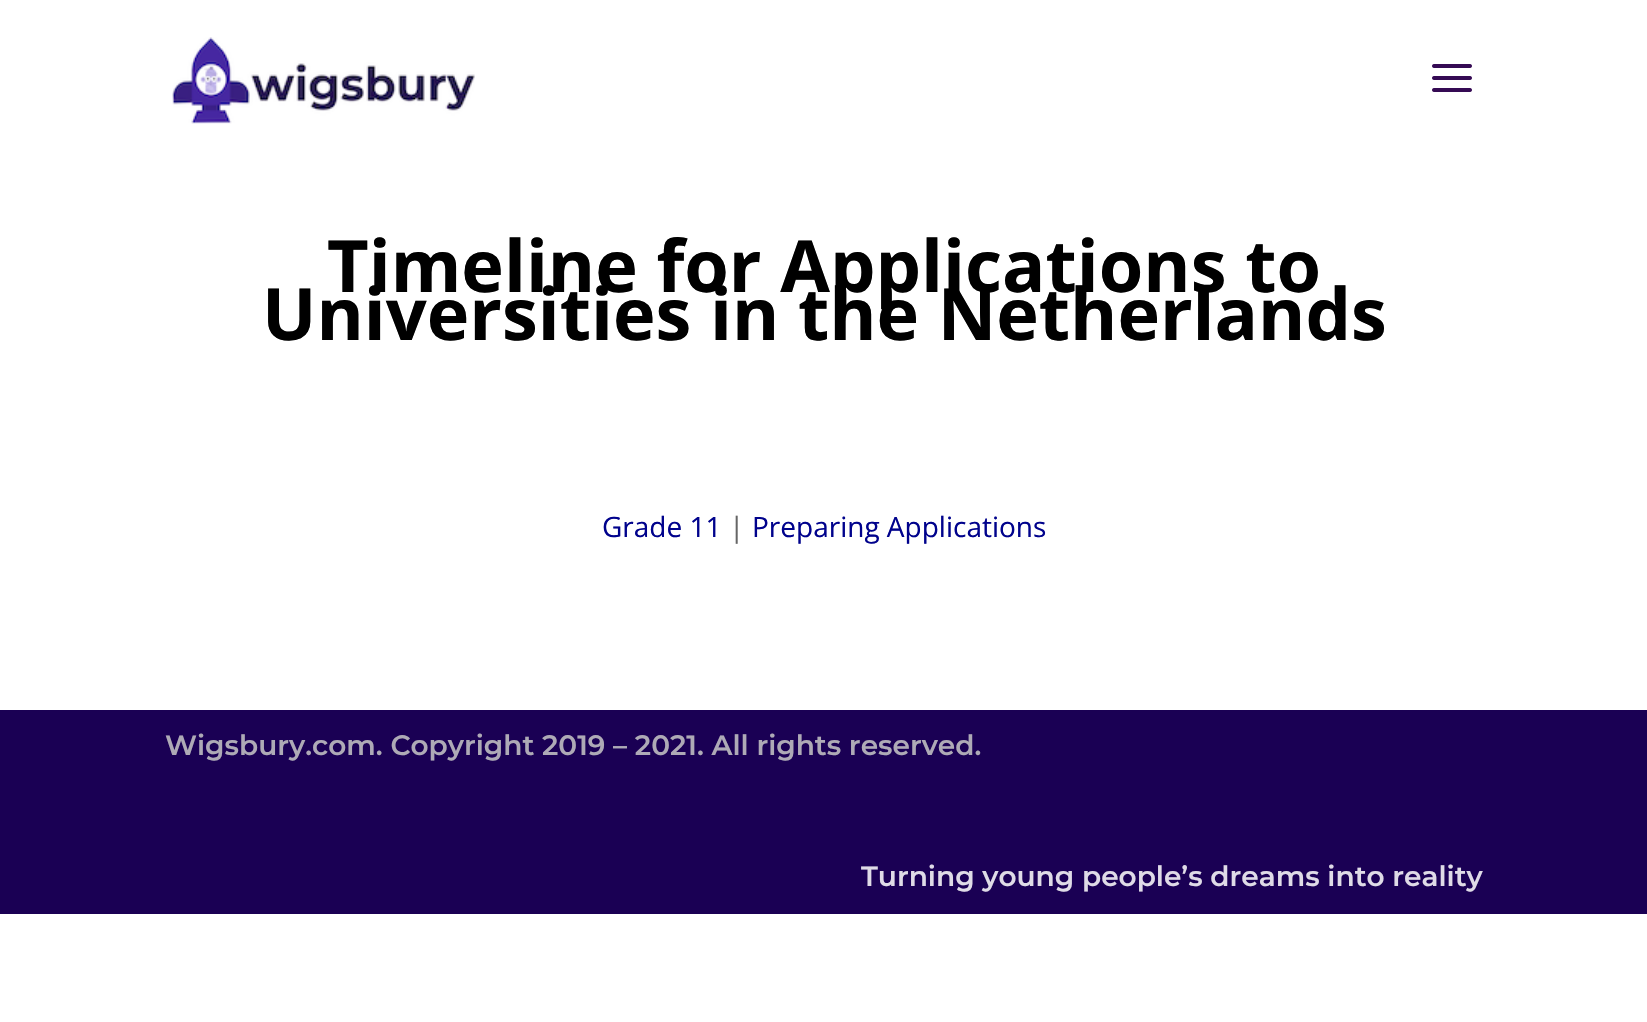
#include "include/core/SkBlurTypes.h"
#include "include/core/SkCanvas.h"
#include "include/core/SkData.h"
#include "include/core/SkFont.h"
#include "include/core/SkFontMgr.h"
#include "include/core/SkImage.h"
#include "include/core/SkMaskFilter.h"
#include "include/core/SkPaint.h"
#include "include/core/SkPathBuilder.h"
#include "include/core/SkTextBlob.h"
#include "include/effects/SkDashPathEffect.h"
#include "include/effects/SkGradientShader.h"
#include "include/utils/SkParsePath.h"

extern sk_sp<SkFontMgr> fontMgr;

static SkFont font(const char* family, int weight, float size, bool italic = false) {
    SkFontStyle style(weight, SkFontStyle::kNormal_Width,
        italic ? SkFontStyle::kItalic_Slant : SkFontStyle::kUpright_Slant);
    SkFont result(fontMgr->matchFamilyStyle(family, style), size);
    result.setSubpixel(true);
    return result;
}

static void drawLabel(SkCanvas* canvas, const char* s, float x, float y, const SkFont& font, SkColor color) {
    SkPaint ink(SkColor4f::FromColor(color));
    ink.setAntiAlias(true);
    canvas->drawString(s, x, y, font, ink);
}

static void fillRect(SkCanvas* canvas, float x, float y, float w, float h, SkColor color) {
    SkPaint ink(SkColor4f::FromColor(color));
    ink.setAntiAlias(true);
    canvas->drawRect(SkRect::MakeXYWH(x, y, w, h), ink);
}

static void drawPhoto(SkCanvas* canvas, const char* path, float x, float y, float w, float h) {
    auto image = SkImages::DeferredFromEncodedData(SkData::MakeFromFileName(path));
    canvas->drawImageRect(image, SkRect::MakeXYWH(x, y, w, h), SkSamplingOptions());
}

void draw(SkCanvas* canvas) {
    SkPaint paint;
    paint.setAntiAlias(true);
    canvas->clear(0xFFFFFFFF);
    drawPhoto(canvas, "assets/img1.png", 172, 37, 303, 87);
    drawPhoto(canvas, "assets/img2.png", 1432, 64, 40, 28);
    SkFont font1 = font("Open Sans", 700, 72);
    drawLabel(canvas, "Timeline for Applications to", 327, 292, font1, 0xFF000000);
    drawLabel(canvas, "Universities in the Netherlands", 262, 340, font1, 0xFF000000);
    SkFont font2 = font("Open Sans", 400, 28);
    drawLabel(canvas, "Grade 11", 602, 537, font2, 0xFF00028C);
    drawLabel(canvas, "|", 729, 537, font2, 0xFF666666);
    drawLabel(canvas, "Preparing Applications", 752, 537, font2, 0xFF00028C);
    fillRect(canvas, 0, 710, 1647, 204, 0xFF1A0054);
    SkFont font3 = font("Montserrat", 100, 28);
    drawLabel(canvas, "Wigsbury.com. Copyright 2019 – 2021. All rights reserved.", 165, 755, font3, 0xFFAEAAB6);
    drawLabel(canvas, "Turning young people’s dreams into reality", 861, 886, font3, 0xFFDFDBE7);
}
